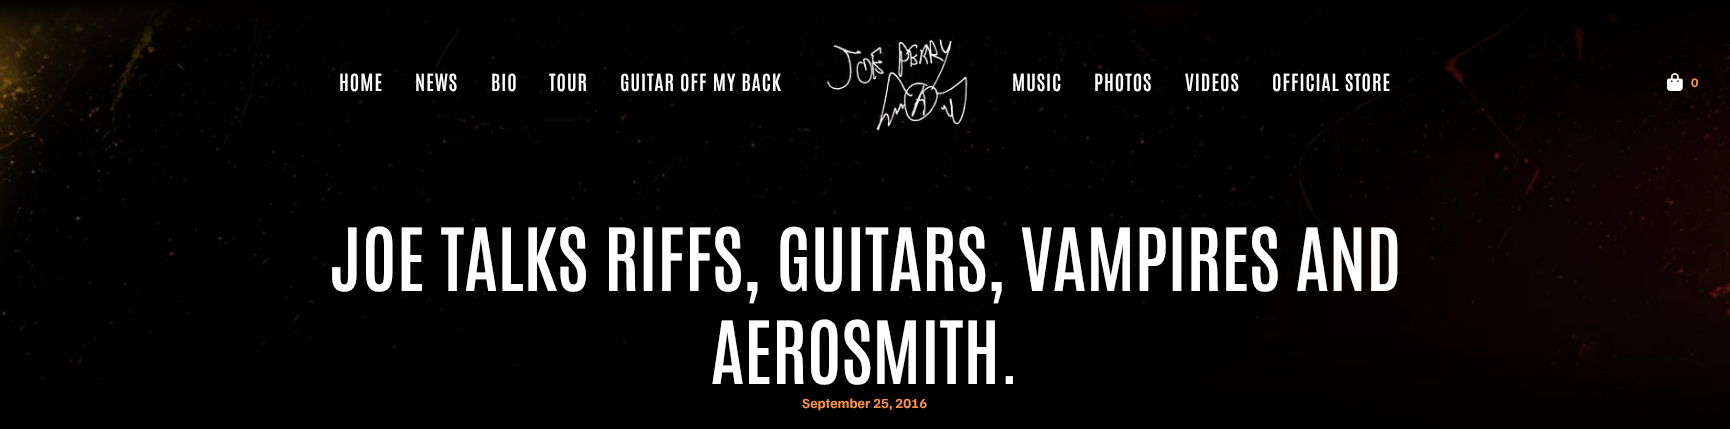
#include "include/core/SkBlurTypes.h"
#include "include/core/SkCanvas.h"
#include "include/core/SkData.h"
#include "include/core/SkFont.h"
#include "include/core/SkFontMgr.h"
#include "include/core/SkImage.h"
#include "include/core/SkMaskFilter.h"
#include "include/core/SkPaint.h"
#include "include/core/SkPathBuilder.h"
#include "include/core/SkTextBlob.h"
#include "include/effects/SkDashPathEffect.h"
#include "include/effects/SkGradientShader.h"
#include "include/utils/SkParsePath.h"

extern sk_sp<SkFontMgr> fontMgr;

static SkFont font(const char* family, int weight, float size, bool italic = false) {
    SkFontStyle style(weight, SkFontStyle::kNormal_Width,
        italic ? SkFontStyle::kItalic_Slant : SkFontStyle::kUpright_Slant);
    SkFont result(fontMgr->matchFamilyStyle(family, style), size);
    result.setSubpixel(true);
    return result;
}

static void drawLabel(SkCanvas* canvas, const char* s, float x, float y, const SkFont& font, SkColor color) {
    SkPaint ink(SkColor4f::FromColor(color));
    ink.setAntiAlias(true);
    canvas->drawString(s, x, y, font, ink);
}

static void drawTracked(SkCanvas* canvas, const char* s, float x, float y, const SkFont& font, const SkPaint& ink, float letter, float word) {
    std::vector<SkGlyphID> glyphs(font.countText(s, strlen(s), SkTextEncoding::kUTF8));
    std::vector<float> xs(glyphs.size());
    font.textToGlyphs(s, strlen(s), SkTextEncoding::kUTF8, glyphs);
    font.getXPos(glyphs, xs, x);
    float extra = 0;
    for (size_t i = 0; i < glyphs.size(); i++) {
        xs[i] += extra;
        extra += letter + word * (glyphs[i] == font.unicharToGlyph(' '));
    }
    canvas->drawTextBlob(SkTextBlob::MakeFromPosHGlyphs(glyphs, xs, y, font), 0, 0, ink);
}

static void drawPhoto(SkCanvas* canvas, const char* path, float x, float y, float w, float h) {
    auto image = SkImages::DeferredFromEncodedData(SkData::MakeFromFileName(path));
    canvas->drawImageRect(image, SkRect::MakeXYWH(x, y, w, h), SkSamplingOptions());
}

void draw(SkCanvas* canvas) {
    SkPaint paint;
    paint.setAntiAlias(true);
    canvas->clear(0xFFFFFFFF);
    drawPhoto(canvas, "assets/img3.png", 0, 0, 1730, 429);
    SkFont font1 = font("Antonio", 600, 20);
    paint.setColor(0xFFFFFFFF);
    drawTracked(canvas, "HOME", 339, 91, font1, paint, 1, 0);
    drawTracked(canvas, "NEWS", 415, 91, font1, paint, 1, 0);
    drawTracked(canvas, "BIO", 491, 91, font1, paint, 1, 0);
    drawTracked(canvas, "TOUR", 549, 91, font1, paint, 1, 0);
    drawTracked(canvas, "GUITAR OFF MY BACK", 620, 91, font1, paint, 1, 0);
    drawPhoto(canvas, "assets/img1.png", 826, 39, 142, 92);
    drawTracked(canvas, "MUSIC", 1012, 91, font1, paint, 1, 0);
    drawTracked(canvas, "PHOTOS", 1094, 91, font1, paint, 1, 0);
    drawTracked(canvas, "VIDEOS", 1185, 91, font1, paint, 1, 0);
    drawTracked(canvas, "OFFICIAL STORE", 1272, 91, font1, paint, 1, 0);
    drawPhoto(canvas, "assets/img2.png", 1667, 73, 16, 18);
    SkFont font2 = font("Familjen Grotesk", 700, 13);
    drawLabel(canvas, "0", 1691, 87, font2, 0xFFF59145);
    SkFont font3 = font("Antonio", 600, 74);
    drawLabel(canvas, "JOE TALKS RIFFS, GUITARS, VAMPIRES AND", 329, 291, font3, 0xFFFFFFFF);
    drawLabel(canvas, "AEROSMITH.", 711, 384, font3, 0xFFFFFFFF);
    SkFont font4 = font("Familjen Grotesk", 700, 14);
    drawLabel(canvas, "September 25, 2016", 802, 408, font4, 0xFFF59145);
}
